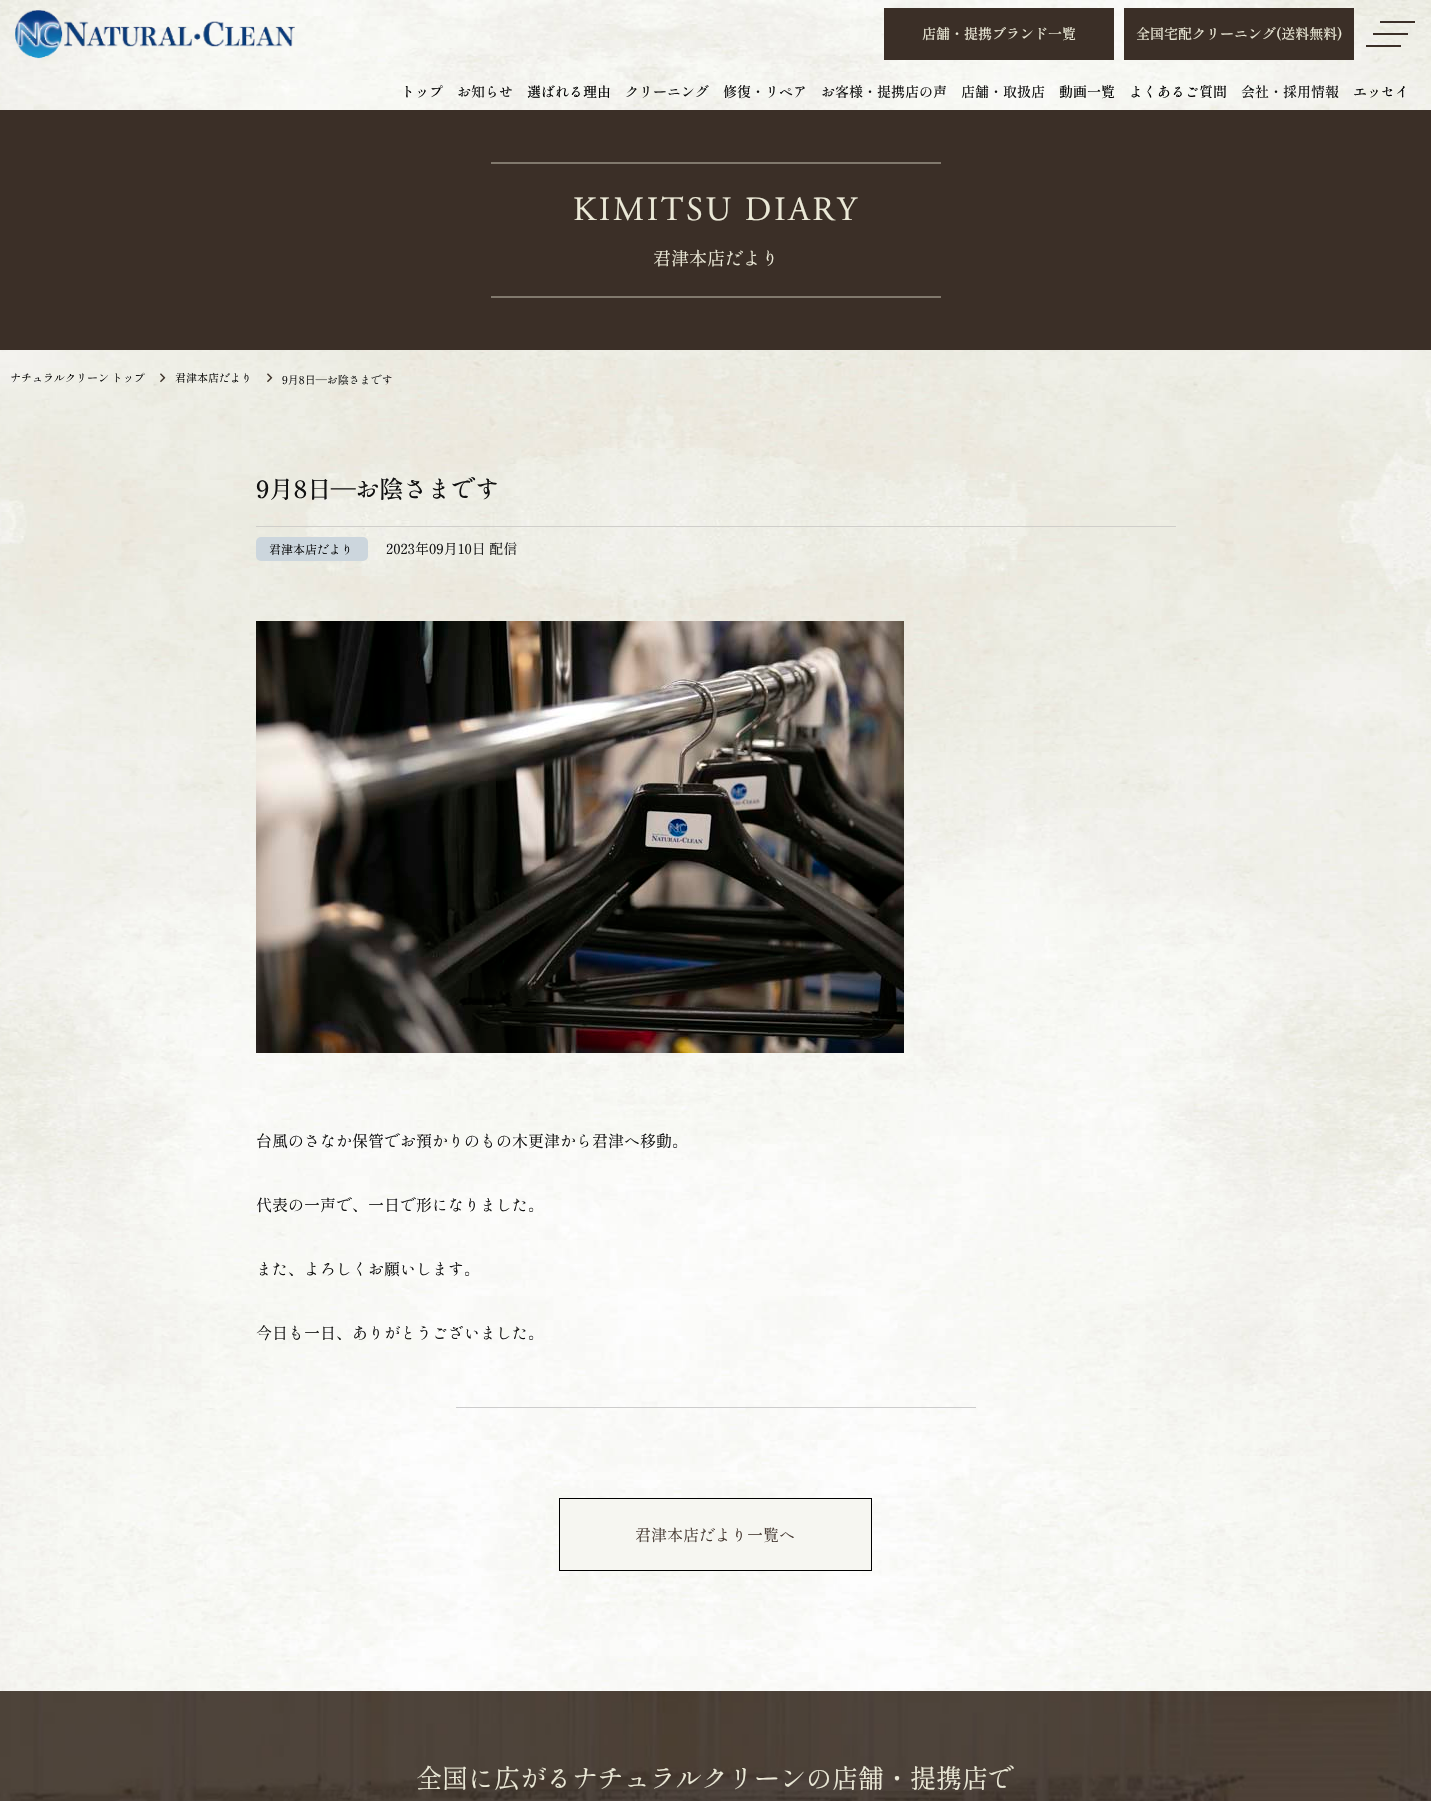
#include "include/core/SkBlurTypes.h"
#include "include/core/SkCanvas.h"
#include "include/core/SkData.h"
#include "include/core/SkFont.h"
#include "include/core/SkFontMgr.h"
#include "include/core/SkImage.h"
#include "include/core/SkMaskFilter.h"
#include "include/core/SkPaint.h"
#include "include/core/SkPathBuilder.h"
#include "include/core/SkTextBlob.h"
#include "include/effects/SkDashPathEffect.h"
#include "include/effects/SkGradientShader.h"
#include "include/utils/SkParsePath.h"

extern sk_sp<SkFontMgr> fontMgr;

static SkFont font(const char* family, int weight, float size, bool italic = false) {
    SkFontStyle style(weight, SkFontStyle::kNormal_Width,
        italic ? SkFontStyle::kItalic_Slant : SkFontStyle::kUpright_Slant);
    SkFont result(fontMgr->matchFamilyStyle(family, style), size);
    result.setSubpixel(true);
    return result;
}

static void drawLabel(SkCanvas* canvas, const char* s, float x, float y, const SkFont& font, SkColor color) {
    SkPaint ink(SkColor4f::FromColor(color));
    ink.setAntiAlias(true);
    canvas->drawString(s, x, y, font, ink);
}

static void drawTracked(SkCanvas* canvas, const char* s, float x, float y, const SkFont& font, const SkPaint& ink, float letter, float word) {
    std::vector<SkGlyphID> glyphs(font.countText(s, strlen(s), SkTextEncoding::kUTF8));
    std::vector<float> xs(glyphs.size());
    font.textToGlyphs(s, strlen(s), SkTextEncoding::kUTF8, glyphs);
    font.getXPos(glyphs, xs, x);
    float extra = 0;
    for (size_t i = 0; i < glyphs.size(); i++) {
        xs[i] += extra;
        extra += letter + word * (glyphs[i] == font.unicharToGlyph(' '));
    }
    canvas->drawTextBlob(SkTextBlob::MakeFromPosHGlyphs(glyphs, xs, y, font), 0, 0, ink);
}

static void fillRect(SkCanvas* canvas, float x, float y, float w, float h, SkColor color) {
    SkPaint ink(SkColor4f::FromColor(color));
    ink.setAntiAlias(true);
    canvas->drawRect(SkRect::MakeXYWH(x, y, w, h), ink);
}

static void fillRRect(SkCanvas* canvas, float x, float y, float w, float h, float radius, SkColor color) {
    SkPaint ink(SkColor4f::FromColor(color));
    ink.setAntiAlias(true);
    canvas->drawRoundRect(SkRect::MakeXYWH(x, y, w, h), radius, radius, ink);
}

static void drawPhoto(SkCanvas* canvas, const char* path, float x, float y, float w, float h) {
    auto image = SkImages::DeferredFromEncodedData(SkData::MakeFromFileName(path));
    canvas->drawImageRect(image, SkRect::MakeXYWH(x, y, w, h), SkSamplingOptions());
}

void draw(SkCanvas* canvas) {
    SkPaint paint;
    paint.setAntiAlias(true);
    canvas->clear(0xFFFFFFFF);
    drawPhoto(canvas, "assets/img1.png", 0, 0, 1431, 1691);
    drawPhoto(canvas, "assets/img2.png", 634, 104, 47, 1);
    drawPhoto(canvas, "assets/img3.png", 15, 10, 280, 49);
    fillRect(canvas, 884, 8, 230, 52, 0xFF3B2F27);
    SkFont font1 = font("Shippori Mincho", 500, 14);
    drawLabel(canvas, "店舗・提携ブランド一覧", 922, 39, font1, 0xFFEBE9D7);
    fillRect(canvas, 1124, 8, 230, 52, 0xFF3B2F27);
    drawLabel(canvas, "全国宅配クリーニング(送料無料)", 1136, 39, font1, 0xFFEBE9D7);
    fillRect(canvas, 1380, 21, 35, 2, 0xFF3B2F27);
    fillRect(canvas, 1373, 33, 35, 2, 0xFF3B2F27);
    fillRect(canvas, 1366, 45, 35, 2, 0xFF3B2F27);
    drawLabel(canvas, "トップ", 401, 97, font1, 0xFF000000);
    drawLabel(canvas, "お知らせ", 457, 97, font1, 0xFF111111);
    drawLabel(canvas, "選ばれる理由", 527, 97, font1, 0xFF000000);
    drawLabel(canvas, "クリーニング", 625, 97, font1, 0xFF111111);
    drawLabel(canvas, "修復・リペア", 723, 97, font1, 0xFF111111);
    drawLabel(canvas, "お客様・提携店の声", 821, 97, font1, 0xFF111111);
    drawLabel(canvas, "店舗・取扱店", 961, 97, font1, 0xFF111111);
    drawLabel(canvas, "動画一覧", 1059, 97, font1, 0xFF000000);
    drawLabel(canvas, "よくあるご質問", 1129, 97, font1, 0xFF000000);
    drawLabel(canvas, "会社・採用情報", 1241, 97, font1, 0xFF111111);
    drawLabel(canvas, "エッセイ", 1353, 97, font1, 0xFF000000);
    fillRect(canvas, 0, 110, 1431, 240, 0xFF3B2F27);
    fillRect(canvas, 491, 162, 450, 2, 0xFF81796D);
    fillRect(canvas, 491, 296, 450, 2, 0xFF81796D);
    SkFont font2 = font("Adobe Garamond", 400, 34);
    paint.setColor(0xFFEBE9D7);
    drawTracked(canvas, "KIMITSU DIARY", 573, 220, font2, paint, 2.75f, 0);
    SkFont font3 = font("Shippori Mincho", 400, 18);
    drawLabel(canvas, "君津本店だより", 653, 265, font3, 0xFFEBE9D7);
    SkFont font4 = font("Shippori Mincho", 400, 11);
    drawLabel(canvas, "ナチュラルクリーン トップ", 10, 382, font4, 0xFF000000);
    drawPhoto(canvas, "assets/img4.png", 160, 373, 6, 10);
    drawLabel(canvas, "君津本店だより", 175, 382, font4, 0xFF000000);
    drawPhoto(canvas, "assets/img5.png", 267, 373, 6, 10);
    drawLabel(canvas, "9月8日―お陰さまです", 282, 384, font4, 0xFF111111);
    fillRect(canvas, 256, 526, 920, 1, 0xFFCFCECA);
    SkFont font5 = font("Shippori Mincho", 500, 24);
    drawLabel(canvas, "9月8日―お陰さまです", 256, 498, font5, 0xFF111111);
    fillRRect(canvas, 256, 537, 112, 24, 5, 0xFFCCD6DD);
    SkFont font6 = font("Shippori Mincho", 400, 12);
    drawLabel(canvas, "君津本店だより", 269, 554, font6, 0xFF000000);
    SkFont font7 = font("Shippori Mincho", 400, 14);
    drawLabel(canvas, "2023年09月10日 配信", 386, 554, font7, 0xFF111111);
    drawPhoto(canvas, "assets/img6.png", 256, 621, 648, 432);
    SkFont font8 = font("Shippori Mincho", 400, 16);
    drawLabel(canvas, "台風のさなか保管でお預かりのもの木更津から君津へ移動。", 256, 1147, font8, 0xFF111111);
    drawLabel(canvas, "代表の一声で、一日で形になりました。", 256, 1211, font8, 0xFF111111);
    drawLabel(canvas, "また、よろしくお願いします。", 256, 1275, font8, 0xFF111111);
    drawLabel(canvas, "今日も一日、ありがとうございました。", 256, 1339, font8, 0xFF111111);
    fillRect(canvas, 456, 1407, 520, 1, 0xFFCCCCCC);
    paint.setColor(0xFFF6F6F1);
    canvas->drawRect(SkRect::MakeXYWH(559.5f, 1498.5f, 312, 72), paint);
    paint.setStroke(true);
    paint.setStrokeWidth(1);
    paint.setColor(0xFF000000);
    canvas->drawRect(SkRect::MakeXYWH(559.5f, 1498.5f, 312, 72), paint);
    drawLabel(canvas, "君津本店だより一覧へ", 635, 1541, font8, 0xFF473B34);
    drawPhoto(canvas, "assets/img7.png", 0, 1691, 1431, 110);
    SkFont font9 = font("Shippori Mincho", 400, 26);
    drawLabel(canvas, "全国に広がるナチュラルクリーンの店舗・提携店で", 416, 1788, font9, 0xFFEBE9D7);
}
